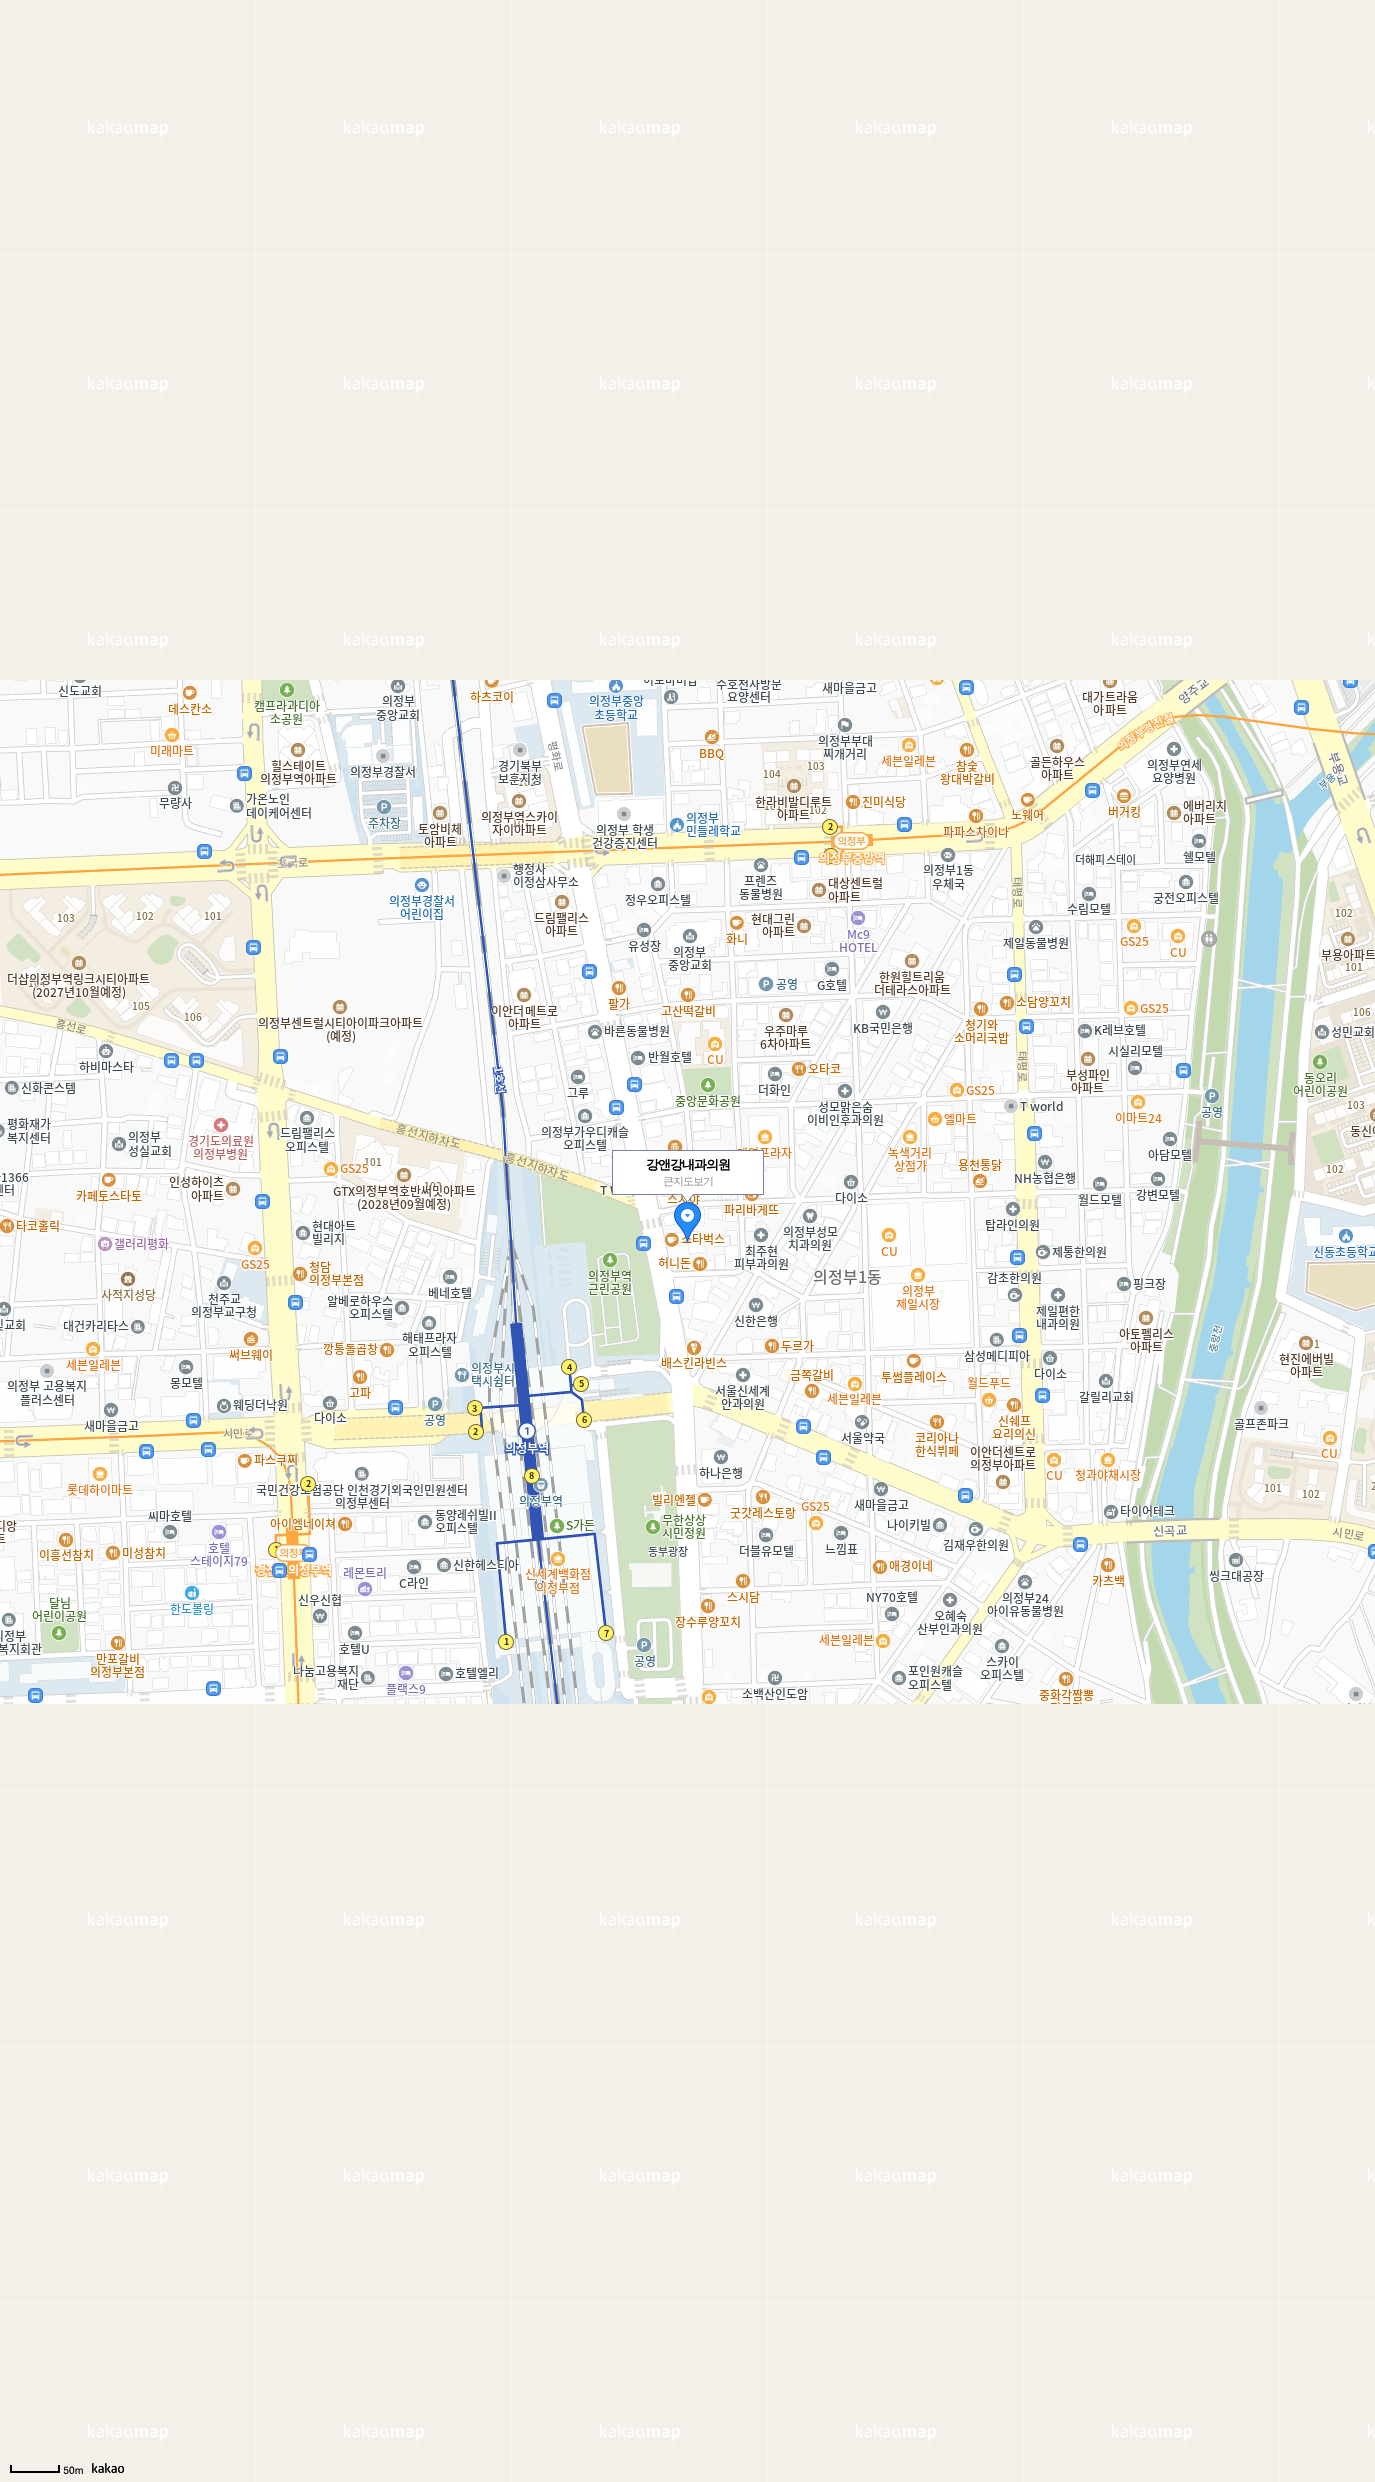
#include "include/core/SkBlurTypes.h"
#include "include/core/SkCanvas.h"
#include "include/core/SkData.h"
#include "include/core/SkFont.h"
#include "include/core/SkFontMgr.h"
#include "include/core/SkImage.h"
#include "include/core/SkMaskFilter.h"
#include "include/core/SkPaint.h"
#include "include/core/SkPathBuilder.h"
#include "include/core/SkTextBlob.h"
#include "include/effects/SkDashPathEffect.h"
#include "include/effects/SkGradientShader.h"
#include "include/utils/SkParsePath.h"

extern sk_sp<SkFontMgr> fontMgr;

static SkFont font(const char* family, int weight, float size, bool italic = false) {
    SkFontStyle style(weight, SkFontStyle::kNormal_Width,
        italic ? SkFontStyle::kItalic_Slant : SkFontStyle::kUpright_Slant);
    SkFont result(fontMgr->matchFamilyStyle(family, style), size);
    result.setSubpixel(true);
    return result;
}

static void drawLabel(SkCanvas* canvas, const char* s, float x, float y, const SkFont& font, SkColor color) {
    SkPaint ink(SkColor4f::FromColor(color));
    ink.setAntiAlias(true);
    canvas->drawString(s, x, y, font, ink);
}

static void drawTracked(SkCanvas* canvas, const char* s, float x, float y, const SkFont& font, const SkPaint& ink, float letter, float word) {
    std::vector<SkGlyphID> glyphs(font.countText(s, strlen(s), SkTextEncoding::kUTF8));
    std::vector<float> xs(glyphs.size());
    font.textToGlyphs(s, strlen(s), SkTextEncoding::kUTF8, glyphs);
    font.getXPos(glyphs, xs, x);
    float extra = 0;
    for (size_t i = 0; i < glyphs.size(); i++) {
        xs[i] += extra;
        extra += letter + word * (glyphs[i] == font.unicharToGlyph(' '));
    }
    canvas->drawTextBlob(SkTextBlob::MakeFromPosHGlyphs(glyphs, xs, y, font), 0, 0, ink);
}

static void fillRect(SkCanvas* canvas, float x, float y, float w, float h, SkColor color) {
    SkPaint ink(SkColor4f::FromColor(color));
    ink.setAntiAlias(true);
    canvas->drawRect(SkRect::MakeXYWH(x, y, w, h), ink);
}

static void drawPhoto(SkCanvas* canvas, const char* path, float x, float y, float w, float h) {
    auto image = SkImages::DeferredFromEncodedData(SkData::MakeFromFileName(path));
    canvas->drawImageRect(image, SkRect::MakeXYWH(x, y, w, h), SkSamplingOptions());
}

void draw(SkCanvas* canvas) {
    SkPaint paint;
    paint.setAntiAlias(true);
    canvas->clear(0xFFFFFFFF);
    drawPhoto(canvas, "assets/img1.png", 0, 0, 1375, 2482);
    drawPhoto(canvas, "assets/img2.png", 0, 680, 204, 256);
    drawPhoto(canvas, "assets/img3.png", 204, 680, 256, 256);
    drawPhoto(canvas, "assets/img4.png", 460, 680, 256, 256);
    drawPhoto(canvas, "assets/img5.png", 716, 680, 256, 256);
    drawPhoto(canvas, "assets/img6.png", 972, 680, 256, 256);
    drawPhoto(canvas, "assets/img7.png", 1228, 680, 147, 256);
    drawPhoto(canvas, "assets/img8.png", 0, 936, 204, 256);
    drawPhoto(canvas, "assets/img9.png", 204, 936, 256, 256);
    drawPhoto(canvas, "assets/img10.png", 460, 936, 256, 256);
    drawPhoto(canvas, "assets/img11.png", 716, 936, 256, 256);
    drawPhoto(canvas, "assets/img12.png", 972, 936, 256, 256);
    drawPhoto(canvas, "assets/img13.png", 1228, 936, 147, 256);
    drawPhoto(canvas, "assets/img14.png", 0, 1192, 204, 256);
    drawPhoto(canvas, "assets/img15.png", 204, 1192, 256, 256);
    drawPhoto(canvas, "assets/img16.png", 460, 1192, 256, 256);
    drawPhoto(canvas, "assets/img17.png", 716, 1192, 256, 256);
    drawPhoto(canvas, "assets/img18.png", 972, 1192, 256, 256);
    drawPhoto(canvas, "assets/img19.png", 1228, 1192, 147, 256);
    drawPhoto(canvas, "assets/img20.png", 0, 1448, 204, 256);
    drawPhoto(canvas, "assets/img21.png", 204, 1448, 256, 256);
    drawPhoto(canvas, "assets/img22.png", 460, 1448, 256, 256);
    drawPhoto(canvas, "assets/img23.png", 716, 1448, 256, 256);
    drawPhoto(canvas, "assets/img24.png", 972, 1448, 256, 256);
    drawPhoto(canvas, "assets/img25.png", 1228, 1448, 147, 256);
    paint.setColor(0xFFFFFFFF);
    canvas->drawRect(SkRect::MakeXYWH(612.5f, 1150.5f, 151, 44), paint);
    paint.setStroke(true);
    paint.setStrokeWidth(1);
    paint.setColor(0xFF7681A8);
    canvas->drawRect(SkRect::MakeXYWH(612.5f, 1150.5f, 151, 44), paint);
    SkFont font1 = font("WenQuanYi Zen Hei", 700, 13);
    paint.setStroke(false);
    paint.setColor(0xFF000000);
    drawTracked(canvas, "강앤강내과의원", 646, 1169, font1, paint, -1, 0);
    SkFont font2 = font("WenQuanYi Zen Hei", 500, 11);
    paint.setColor(0xFF999999);
    drawTracked(canvas, "큰지도보기", 663, 1185, font2, paint, -1, 0);
    drawPhoto(canvas, "assets/img27.png", 674, 1202, 27, 42);
    drawPhoto(canvas, "assets/img26.png", 682, 1194, 11, 9);
    fillRect(canvas, 58, 2465, 2, 8, 0xFF000000);
    fillRect(canvas, 10, 2471, 50, 2, 0xFF000000);
    fillRect(canvas, 10, 2465, 2, 8, 0xFF000000);
    SkFont font3 = font("Dotum", 700, 10);
    drawLabel(canvas, "50m", 63, 2474, font3, 0xFF000000);
    drawPhoto(canvas, "assets/img28.png", 92, 2463, 32, 10);
}
